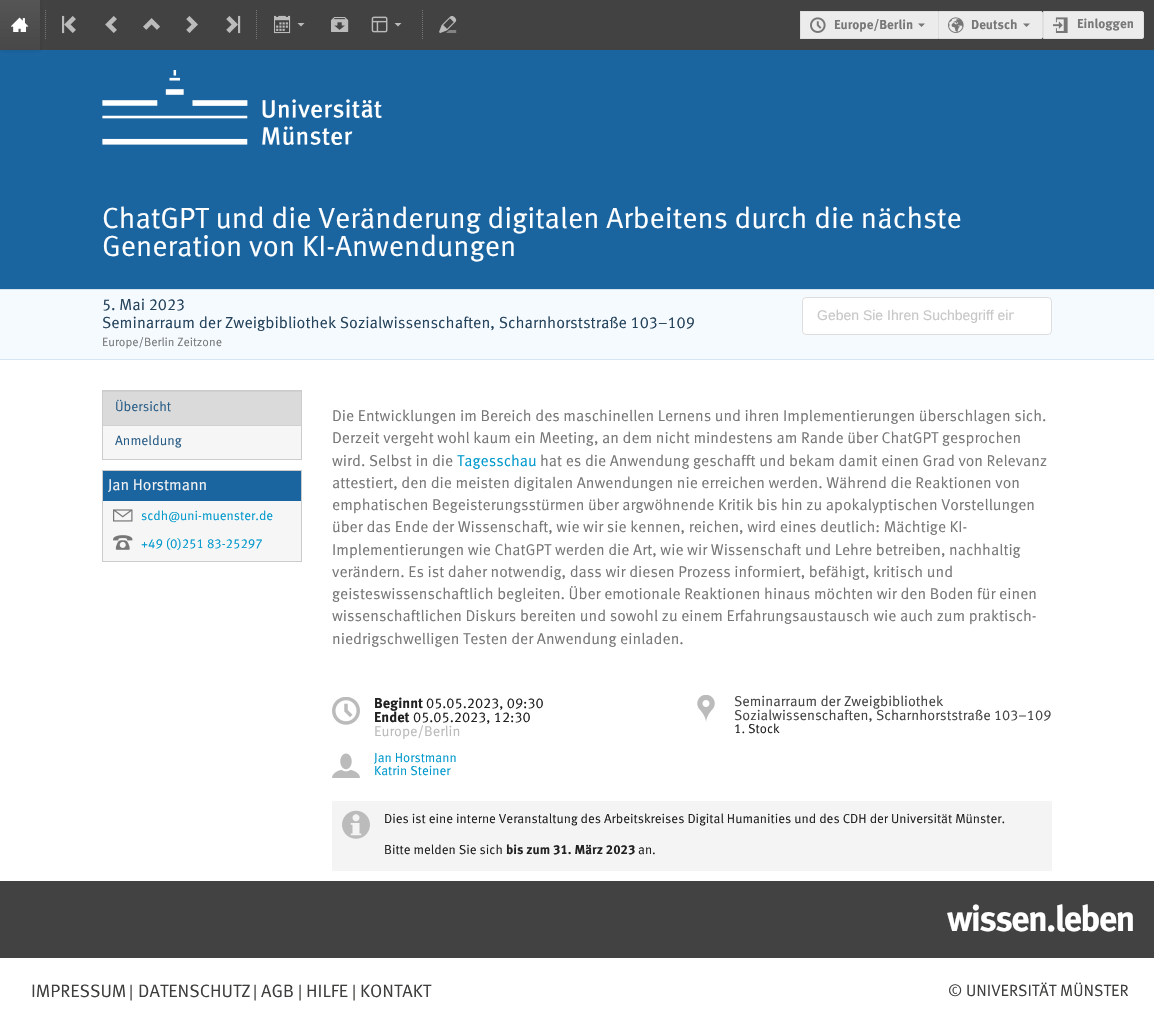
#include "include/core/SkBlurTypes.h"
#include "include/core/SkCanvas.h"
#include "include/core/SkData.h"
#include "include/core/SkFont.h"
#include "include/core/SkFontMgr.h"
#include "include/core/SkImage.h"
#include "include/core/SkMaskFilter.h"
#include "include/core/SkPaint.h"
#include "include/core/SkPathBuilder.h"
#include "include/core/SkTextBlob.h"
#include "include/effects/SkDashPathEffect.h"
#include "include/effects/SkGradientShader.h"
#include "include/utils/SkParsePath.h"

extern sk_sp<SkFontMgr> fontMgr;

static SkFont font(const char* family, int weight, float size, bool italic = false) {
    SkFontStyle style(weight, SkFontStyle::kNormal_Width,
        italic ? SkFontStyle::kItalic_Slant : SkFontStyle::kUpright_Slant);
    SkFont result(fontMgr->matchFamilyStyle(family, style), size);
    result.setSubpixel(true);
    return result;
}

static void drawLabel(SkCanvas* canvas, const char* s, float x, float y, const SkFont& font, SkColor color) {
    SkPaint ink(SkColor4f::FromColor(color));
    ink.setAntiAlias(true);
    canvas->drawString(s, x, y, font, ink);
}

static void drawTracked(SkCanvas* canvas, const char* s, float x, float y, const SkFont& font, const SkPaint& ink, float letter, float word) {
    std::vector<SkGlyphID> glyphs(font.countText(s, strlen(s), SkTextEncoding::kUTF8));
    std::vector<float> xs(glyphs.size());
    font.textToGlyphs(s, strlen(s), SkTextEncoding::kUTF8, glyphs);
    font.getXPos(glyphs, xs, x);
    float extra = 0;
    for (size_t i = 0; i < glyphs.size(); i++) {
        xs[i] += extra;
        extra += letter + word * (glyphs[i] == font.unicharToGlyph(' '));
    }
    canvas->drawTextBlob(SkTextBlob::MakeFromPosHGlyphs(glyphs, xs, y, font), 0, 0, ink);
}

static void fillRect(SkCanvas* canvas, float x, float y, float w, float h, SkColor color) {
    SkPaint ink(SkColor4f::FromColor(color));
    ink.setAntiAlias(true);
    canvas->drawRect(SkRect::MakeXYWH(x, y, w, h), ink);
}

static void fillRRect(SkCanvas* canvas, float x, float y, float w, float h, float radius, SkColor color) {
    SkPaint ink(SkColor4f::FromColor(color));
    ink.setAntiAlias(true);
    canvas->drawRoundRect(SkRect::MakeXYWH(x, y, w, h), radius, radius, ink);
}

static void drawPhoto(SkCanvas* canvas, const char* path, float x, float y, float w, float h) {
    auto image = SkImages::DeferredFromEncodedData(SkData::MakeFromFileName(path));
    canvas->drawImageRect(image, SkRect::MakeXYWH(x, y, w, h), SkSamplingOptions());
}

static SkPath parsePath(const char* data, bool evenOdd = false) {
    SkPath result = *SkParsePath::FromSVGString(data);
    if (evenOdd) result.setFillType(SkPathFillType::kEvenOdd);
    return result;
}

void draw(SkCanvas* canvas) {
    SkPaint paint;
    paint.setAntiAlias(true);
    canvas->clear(0xFFFFFFFF);
    fillRect(canvas, 40, 0, 1114, 50, 0xFF424242);
    fillRect(canvas, 0, 50, 1154, 239, 0xFF1A64A0);
    paint.setColor(0x1A141414);
    paint.setMaskFilter(SkMaskFilter::MakeBlur(kNormal_SkBlurStyle, 2));
    canvas->drawRect(SkRect::MakeXYWH(1, 1, 40, 50), paint);
    paint.setMaskFilter(nullptr);
    {
        const SkColor colors[] = {0xFF555555, 0xFF484848};
        const float stops[] = {0, 1};
        const SkPoint ends[] = {{20, 0}, {20, 50}};
        paint.setShader(SkGradientShader::MakeLinear(ends, colors, stops, 2, SkTileMode::kClamp));
        paint.setAlpha(255);
    }
    canvas->drawRect(SkRect::MakeXYWH(0, 0, 40, 50), paint);
    drawPhoto(canvas, "assets/img1.png", 11, 17, 18, 15);
    paint.setStroke(true);
    paint.setStrokeWidth(1);
    paint.setShader(nullptr);
    paint.setColor(0xFF777777);
    paint.setPathEffect(SkDashPathEffect::Make({{1, 1}}, 0));
    canvas->drawPath(parsePath("M45.5 10V40"), paint);
    paint.setPathEffect(nullptr);
    drawPhoto(canvas, "assets/img2.png", 62, 15, 14, 19);
    drawPhoto(canvas, "assets/img3.png", 105, 16, 12, 17);
    drawPhoto(canvas, "assets/img4.png", 143, 18, 17, 12);
    drawPhoto(canvas, "assets/img5.png", 186, 16, 12, 17);
    drawPhoto(canvas, "assets/img6.png", 226, 15, 15, 19);
    paint.setPathEffect(SkDashPathEffect::Make({{1, 1}}, 0));
    canvas->drawPath(parsePath("M256.5 10V40"), paint);
    paint.setPathEffect(nullptr);
    drawPhoto(canvas, "assets/img7.png", 274, 15, 17, 19);
    paint.setStroke(false);
    paint.setColor(0xFFBBBBBB);
    canvas->drawPath(parsePath("M297.5 23L301 26.5L304.5 23Z"), paint);
    drawPhoto(canvas, "assets/img8.png", 331, 17, 18, 15);
    drawPhoto(canvas, "assets/img9.png", 371, 16, 17, 17);
    canvas->drawPath(parsePath("M394.5 23L398 26.5L401.5 23Z"), paint);
    paint.setStroke(true);
    paint.setColor(0xFF777777);
    paint.setPathEffect(SkDashPathEffect::Make({{1, 1}}, 0));
    canvas->drawPath(parsePath("M422.5 10V40"), paint);
    paint.setPathEffect(nullptr);
    drawPhoto(canvas, "assets/img10.png", 439, 16, 18, 17);
    fillRect(canvas, 801, 12, 137, 26, 0xFFECECEC);
    fillRect(canvas, 800, 11, 138, 1, 0xFFDFDFDF);
    fillRect(canvas, 800, 38, 138, 1, 0xFFDFDFDF);
    fillRect(canvas, 800, 11, 1, 28, 0xFFDFDFDF);
    drawPhoto(canvas, "assets/img11.png", 810, 17, 16, 16);
    SkFont font1 = font("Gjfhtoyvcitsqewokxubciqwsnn", 700, 13);
    drawLabel(canvas, "Europe/Berlin", 834, 29, font1, 0xFF777777);
    paint.setStroke(false);
    canvas->drawPath(parsePath("M918 23.5L921.5 27L925 23.5Z"), paint);
    paint.setColor(0xFFECECEC);
    canvas->drawPath(parsePath("M938.5 11.5H1041C1042 11.5 1042.5 12 1042.5 13V37C1042.5 38 1042 38.5 1041 38.5H938.5Z"), paint);
    paint.setStroke(true);
    paint.setColor(0xFFDFDFDF);
    canvas->drawPath(parsePath("M938.5 11.5H1041C1042 11.5 1042.5 12 1042.5 13V37C1042.5 38 1042 38.5 1041 38.5H938.5Z"), paint);
    drawPhoto(canvas, "assets/img12.png", 948, 17, 16, 16);
    drawLabel(canvas, "Deutsch", 971, 29, font1, 0xFF777777);
    paint.setStroke(false);
    paint.setColor(0xFF777777);
    canvas->drawPath(parsePath("M1023 23.5L1026.5 27L1030 23.5Z"), paint);
    paint.setColor(0xFFECECEC);
    canvas->drawPath(parsePath("M1043.5 11.5H1142C1143 11.5 1143.5 12 1143.5 13V37C1143.5 38 1143 38.5 1142 38.5H1043.5Z"), paint);
    paint.setStroke(true);
    paint.setColor(0xFFDFDFDF);
    canvas->drawPath(parsePath("M1043.5 11.5H1142C1143 11.5 1143.5 12 1143.5 13V37C1143.5 38 1143 38.5 1142 38.5H1043.5Z"), paint);
    drawPhoto(canvas, "assets/img13.png", 1053, 17, 15, 16);
    drawLabel(canvas, "Einloggen", 1077, 28, font1, 0xFF777777);
    drawPhoto(canvas, "assets/img14.png", 102, 70, 280, 75);
    SkFont font2 = font("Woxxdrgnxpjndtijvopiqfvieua", 400, 29.3f);
    drawLabel(canvas, "ChatGPT und die Veränderung digitalen Arbeitens durch die nächste", 102, 228, font2, 0xFFFFFFFF);
    drawLabel(canvas, "Generation von KI-Anwendungen", 102, 256, font2, 0xFFFFFFFF);
    fillRect(canvas, 0, 290, 1154, 69, 0xFFF5FAFF);
    fillRect(canvas, 0, 289, 1154, 1, 0xFFD5E4F1);
    fillRect(canvas, 0, 359, 1154, 1, 0xFFD5E4F1);
    SkFont font3 = font("Woxxdrgnxpjndtijvopiqfvieua", 400, 16);
    drawLabel(canvas, "5. Mai 2023", 102, 310, font3, 0xFF24425A);
    drawLabel(canvas, "Seminarraum der Zweigbibliothek Sozialwissenschaften, Scharnhorststraße 103–109", 102, 328, font3, 0xFF24425A);
    SkFont font4 = font("Woxxdrgnxpjndtijvopiqfvieua", 400, 12);
    drawLabel(canvas, "Europe/Berlin Zeitzone", 102, 346, font4, 0xFF777777);
    fillRRect(canvas, 802, 297, 250, 38, 4, 0xFFFFFFFF);
    paint.setColor(0x26222426);
    canvas->drawRoundRect(SkRect::MakeXYWH(802.5f, 297.5f, 249, 37), 3.5f, 3.5f, paint);
    canvas->save();
    canvas->clipRect(SkRect::MakeXYWH(817, 307, 197, 16));
    SkFont font5 = font("Liberation Sans", 400, 14);
    drawLabel(canvas, "Geben Sie Ihren Suchbegriff ein", 817, 320, font5, 0xFFC7C7C7);
    canvas->restore();
    fillRect(canvas, 103, 426, 198, 33, 0xFFF6F6F6);
    paint.setColor(0xFFCCCCCC);
    canvas->drawRect(SkRect::MakeXYWH(102.5f, 390.5f, 199, 69), paint);
    fillRect(canvas, 103, 392, 198, 33, 0xFFDADADA);
    fillRect(canvas, 103, 391, 198, 1, 0xFFD0D0D0);
    fillRect(canvas, 103, 425, 198, 1, 0xFFD0D0D0);
    SkFont font6 = font("Woxxdrgnxpjndtijvopiqfvieua", 400, 13.5f);
    drawLabel(canvas, "Übersicht", 115, 411, font6, 0xFF275C86);
    drawLabel(canvas, "Anmeldung", 115, 445, font6, 0xFF275C86);
    fillRect(canvas, 103, 501, 198, 60, 0xFFF6F6F6);
    canvas->drawRect(SkRect::MakeXYWH(102.5f, 470.5f, 199, 91), paint);
    fillRect(canvas, 103, 471, 198, 30, 0xFF1A64A0);
    SkFont font7 = font("Woxxdrgnxpjndtijvopiqfvieua", 400, 15.6f);
    drawLabel(canvas, "Jan Horstmann", 108, 490, font7, 0xFFF3F3F3);
    drawPhoto(canvas, "assets/img15.png", 113, 509, 20, 13);
    SkFont font8 = font("Woxxdrgnxpjndtijvopiqfvieua", 400, 13);
    drawLabel(canvas, "scdh@uni-muenster.de", 141, 520, font8, 0xFF0099CC);
    drawPhoto(canvas, "assets/img16.png", 113, 535, 20, 15);
    drawLabel(canvas, "+49 (0)251 83-25297", 141, 548, font8, 0xFF0099CC);
    drawLabel(canvas, "Die Entwicklungen im Bereich des maschinellen Lernens und ihren Implementierungen überschlagen sich.", 332, 421, font7, 0xFF777777);
    drawLabel(canvas, "Derzeit vergeht wohl kaum ein Meeting, an dem nicht mindestens am Rande über ChatGPT gesprochen", 332, 443, font7, 0xFF777777);
    drawLabel(canvas, "wird. Selbst in die", 332, 466, font7, 0xFF777777);
    drawLabel(canvas, "Tagesschau", 457, 466, font7, 0xFF0099CC);
    drawLabel(canvas, "hat es die Anwendung geschafft und bekam damit einen Grad von Relevanz", 540, 466, font7, 0xFF777777);
    drawLabel(canvas, "attestiert, den die meisten digitalen Anwendungen nie erreichen werden. Während die Reaktionen von", 332, 488, font7, 0xFF777777);
    drawLabel(canvas, "emphatischen Begeisterungsstürmen über argwöhnende Kritik bis hin zu apokalyptischen Vorstellungen", 332, 510, font7, 0xFF777777);
    drawLabel(canvas, "über das Ende der Wissenschaft, wie wir sie kennen, reichen, wird eines deutlich: Mächtige KI-", 332, 532, font7, 0xFF777777);
    drawLabel(canvas, "Implementierungen wie ChatGPT werden die Art, wie wir Wissenschaft und Lehre betreiben, nachhaltig", 332, 555, font7, 0xFF777777);
    drawLabel(canvas, "verändern. Es ist daher notwendig, dass wir diesen Prozess informiert, befähigt, kritisch und", 332, 577, font7, 0xFF777777);
    drawLabel(canvas, "geisteswissenschaftlich begleiten. Über emotionale Reaktionen hinaus möchten wir den Boden für einen", 332, 599, font7, 0xFF777777);
    drawLabel(canvas, "wissenschaftlichen Diskurs bereiten und sowohl zu einem Erfahrungsaustausch wie auch zum praktisch-", 332, 621, font7, 0xFF777777);
    drawLabel(canvas, "niedrigschwelligen Testen der Anwendung einladen.", 332, 644, font7, 0xFF777777);
    drawPhoto(canvas, "assets/img17.png", 332, 697, 28, 28);
    SkFont font9 = font("Gjfhtoyvcitsqewokxubciqwsnn", 700, 14.3f);
    drawLabel(canvas, "Beginnt", 374, 708, font9, 0xFF212121);
    SkFont font10 = font("Woxxdrgnxpjndtijvopiqfvieua", 400, 14.3f);
    drawLabel(canvas, "05.05.2023, 09:30", 426, 708, font10, 0xFF212121);
    drawLabel(canvas, "Endet", 374, 722, font9, 0xFF212121);
    drawLabel(canvas, "05.05.2023, 12:30", 413, 722, font10, 0xFF212121);
    drawLabel(canvas, "Europe/Berlin", 374, 736, font10, 0xFFBBBBBB);
    drawPhoto(canvas, "assets/img18.png", 697, 695, 18, 27);
    drawLabel(canvas, "Seminarraum der Zweigbibliothek", 734, 706, font10, 0xFF444444);
    drawLabel(canvas, "Sozialwissenschaften, Scharnhorststraße 103–109", 734, 720, font10, 0xFF444444);
    drawLabel(canvas, "1. Stock", 734, 733, font8, 0xFF212121);
    drawPhoto(canvas, "assets/img19.png", 332, 753, 28, 25);
    drawLabel(canvas, "Jan Horstmann", 374, 762, font8, 0xFF0099CC);
    drawLabel(canvas, "Katrin Steiner", 374, 775, font8, 0xFF0099CC);
    fillRect(canvas, 332, 801, 720, 70, 0xFFF4F4F4);
    drawPhoto(canvas, "assets/img20.png", 342, 810, 28, 29);
    drawLabel(canvas, "Dies ist eine interne Veranstaltung des Arbeitskreises Digital Humanities und des CDH der Universität Münster.", 384, 823, font8, 0xFF212121);
    drawLabel(canvas, "Bitte melden Sie sich", 384, 854, font8, 0xFF212121);
    drawLabel(canvas, "bis zum 31. März 2023", 506, 854, font1, 0xFF212121);
    drawLabel(canvas, "an.", 638, 854, font8, 0xFF212121);
    fillRect(canvas, 0, 881, 1154, 77, 0xFF424242);
    SkFont font11 = font("Gjfhtoyvcitsqewokxubciqwsnn", 700, 36);
    paint.setStroke(false);
    paint.setColor(0xFFFFFFFF);
    drawTracked(canvas, "wissen.leben", 947, 931, font11, paint, -1.75f, 0);
    SkFont font12 = font("Woxxdrgnxpjndtijvopiqfvieua", 400, 18);
    drawLabel(canvas, "IMPRESSUM", 31, 997, font12, 0xFF3E3E3C);
    SkFont font13 = font("Woxxdrgnxpjndtijvopiqfvieua", 400, 16.25f);
    drawLabel(canvas, "|", 129, 997, font13, 0xFF3E3E3C);
    drawLabel(canvas, "DATENSCHUTZ", 138, 997, font12, 0xFF3E3E3C);
    drawLabel(canvas, "|", 253, 997, font13, 0xFF3E3E3C);
    drawLabel(canvas, "AGB", 261, 997, font12, 0xFF3E3E3C);
    drawLabel(canvas, "|", 298, 997, font13, 0xFF3E3E3C);
    drawLabel(canvas, "HILFE", 306, 997, font12, 0xFF3E3E3C);
    drawLabel(canvas, "|", 352, 997, font13, 0xFF3E3E3C);
    drawLabel(canvas, "KONTAKT", 360, 997, font12, 0xFF3E3E3C);
    drawLabel(canvas, "© UNIVERSITÄT MÜNSTER", 948, 996, font13, 0xFF3E3E3C);
}
